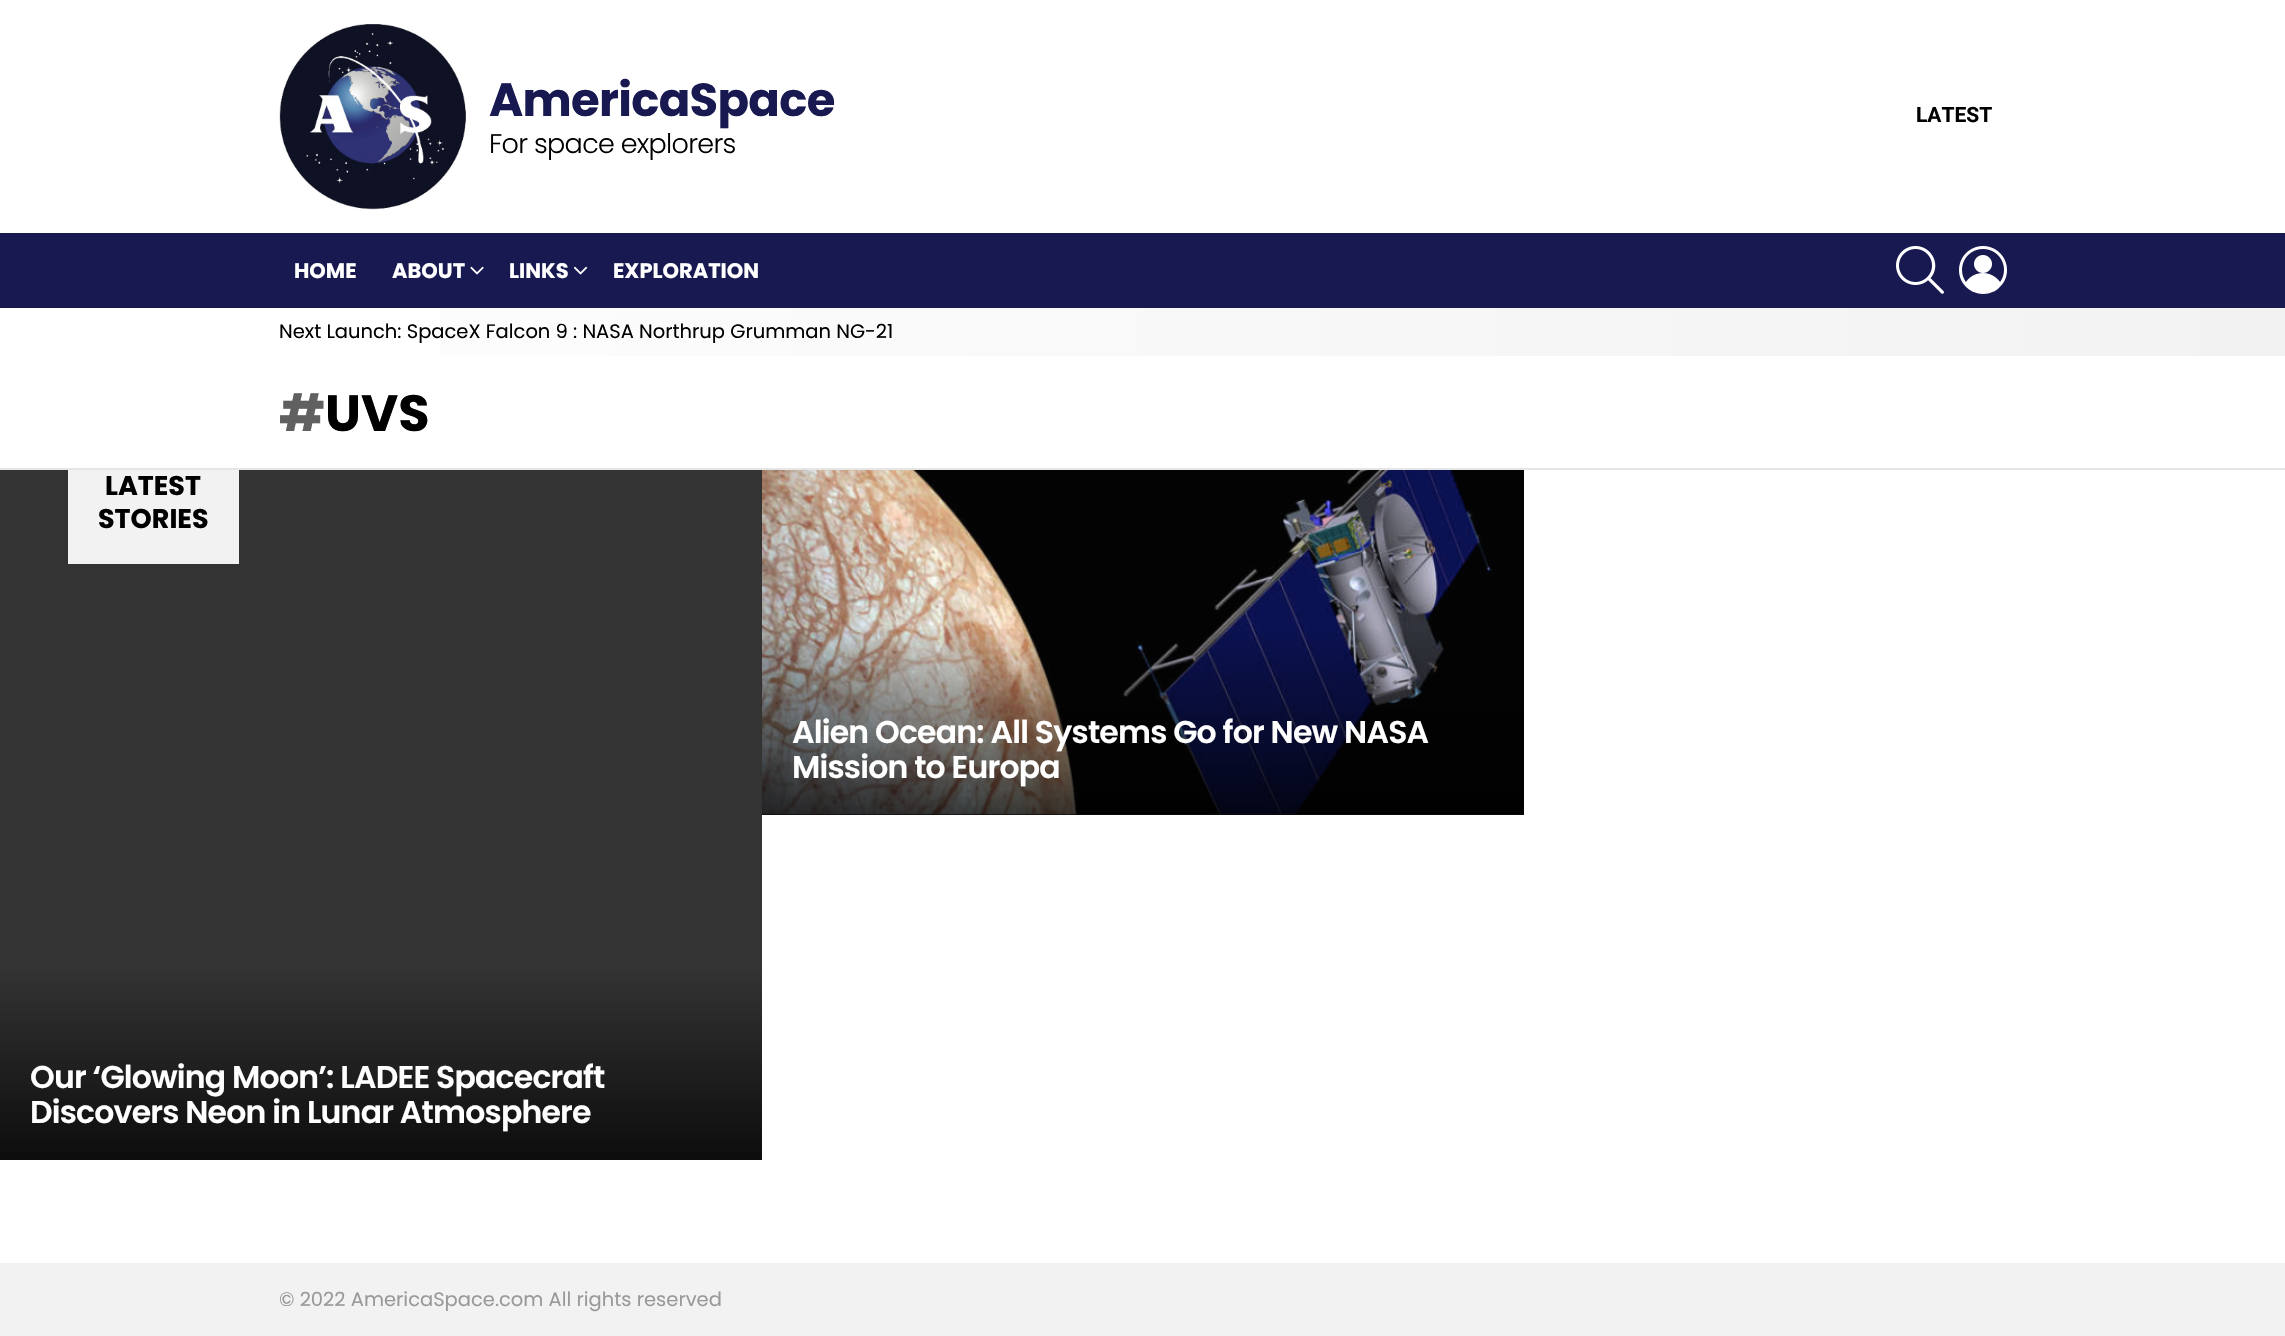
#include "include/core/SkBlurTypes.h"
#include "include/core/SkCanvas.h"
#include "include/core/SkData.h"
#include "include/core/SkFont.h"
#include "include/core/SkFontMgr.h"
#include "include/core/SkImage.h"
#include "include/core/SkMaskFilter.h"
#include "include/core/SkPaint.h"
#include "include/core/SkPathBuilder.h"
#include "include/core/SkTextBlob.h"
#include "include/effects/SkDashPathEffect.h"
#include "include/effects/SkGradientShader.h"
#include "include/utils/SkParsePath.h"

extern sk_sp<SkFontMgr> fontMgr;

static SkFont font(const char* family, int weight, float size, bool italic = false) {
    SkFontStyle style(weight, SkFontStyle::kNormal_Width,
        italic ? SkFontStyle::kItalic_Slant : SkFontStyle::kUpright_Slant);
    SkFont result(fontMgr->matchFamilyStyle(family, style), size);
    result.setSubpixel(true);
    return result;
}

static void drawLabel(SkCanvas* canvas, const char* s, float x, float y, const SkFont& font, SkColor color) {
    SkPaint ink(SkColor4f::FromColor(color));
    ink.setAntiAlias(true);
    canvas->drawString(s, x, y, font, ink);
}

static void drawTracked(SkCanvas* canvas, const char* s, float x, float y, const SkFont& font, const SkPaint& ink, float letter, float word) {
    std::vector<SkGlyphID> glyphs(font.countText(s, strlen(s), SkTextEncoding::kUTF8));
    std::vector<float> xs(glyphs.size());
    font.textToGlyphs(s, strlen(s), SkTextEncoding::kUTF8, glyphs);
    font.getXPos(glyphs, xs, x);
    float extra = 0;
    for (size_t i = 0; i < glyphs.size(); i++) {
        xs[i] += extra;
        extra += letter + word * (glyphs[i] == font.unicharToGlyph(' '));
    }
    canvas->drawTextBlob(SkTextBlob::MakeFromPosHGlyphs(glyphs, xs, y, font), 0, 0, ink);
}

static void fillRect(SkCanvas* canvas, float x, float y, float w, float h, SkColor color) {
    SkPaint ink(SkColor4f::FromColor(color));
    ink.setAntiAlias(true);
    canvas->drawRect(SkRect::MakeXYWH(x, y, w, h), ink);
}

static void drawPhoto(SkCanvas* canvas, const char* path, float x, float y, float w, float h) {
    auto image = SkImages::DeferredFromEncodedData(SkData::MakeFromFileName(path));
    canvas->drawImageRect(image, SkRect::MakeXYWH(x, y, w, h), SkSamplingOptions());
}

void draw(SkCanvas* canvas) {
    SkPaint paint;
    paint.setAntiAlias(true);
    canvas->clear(0xFFFFFFFF);
    drawPhoto(canvas, "assets/img1.png", 279, 24, 187, 186);
    SkFont font1 = font("Poppins", 700, 46.5f);
    paint.setColor(0xFF171950);
    drawTracked(canvas, "AmericaSpace", 489, 116, font1, paint, -0.7f, 0);
    SkFont font2 = font("Poppins", 300, 27);
    paint.setColor(0xFF000000);
    drawTracked(canvas, "For space explorers", 489, 153, font2, paint, -0.7f, 0);
    SkFont font3 = font("Roboto", 700, 21);
    drawLabel(canvas, "LATEST", 1916, 122, font3, 0xFF000000);
    fillRect(canvas, 0, 233, 2285, 75, 0xFF171950);
    SkFont font4 = font("Poppins", 700, 21);
    drawLabel(canvas, "HOME", 294, 278, font4, 0xFFFFFFFF);
    drawLabel(canvas, "ABOUT", 392, 278, font4, 0xFFFFFFFF);
    drawPhoto(canvas, "assets/img2.png", 470, 266, 14, 9);
    drawLabel(canvas, "LINKS", 509, 278, font4, 0xFFFFFFFF);
    drawPhoto(canvas, "assets/img3.png", 573, 266, 15, 9);
    drawLabel(canvas, "EXPLORATION", 613, 278, font4, 0xFFFFFFFF);
    drawPhoto(canvas, "assets/img4.png", 1896, 246, 48, 48);
    drawPhoto(canvas, "assets/img5.png", 1959, 246, 48, 48);
    {
        const SkColor colors[] = {0xFFFFFFFF, 0xFFF2F2F2};
        const float stops[] = {0, 1};
        const SkPoint ends[] = {{0, 332}, {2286, 331}};
        paint.setShader(SkGradientShader::MakeLinear(ends, colors, stops, 2, SkTileMode::kClamp));
        paint.setAlpha(255);
    }
    canvas->drawRect(SkRect::MakeXYWH(440, 308, 1845, 48), paint);
    SkFont font5 = font("Poppins", 400, 19.5f);
    drawLabel(canvas, "Next Launch: SpaceX Falcon 9 : NASA Northrup Grumman NG-21", 279, 338, font5, 0xFF000000);
    SkFont font6 = font("Poppins", 700, 51);
    drawLabel(canvas, "#", 279, 431, font6, 0xFF606060);
    drawLabel(canvas, "UVS", 325, 431, font6, 0xFF000000);
    fillRect(canvas, 0, 468, 2285, 2, 0xFFE6E6E6);
    fillRect(canvas, 0, 470, 762, 499, 0xFF333333);
    fillRect(canvas, 68, 470, 171, 94, 0xFFF2F2F2);
    SkFont font7 = font("Poppins", 700, 27);
    drawLabel(canvas, "LATEST", 105, 495, font7, 0xFF000000);
    drawLabel(canvas, "STORIES", 98, 528, font7, 0xFF000000);
    fillRect(canvas, 762, 814, 762, 1, 0xFF333333);
    drawPhoto(canvas, "assets/img6.png", 762, 470, 762, 345);
    {
        const SkColor colors[] = {0x00000000, 0xBF000000};
        const float stops[] = {0, 1};
        const SkPoint ends[] = {{1143, 624}, {1143, 815}};
        paint.setShader(SkGradientShader::MakeLinear(ends, colors, stops, 2, SkTileMode::kClamp));
        paint.setAlpha(255);
    }
    canvas->drawRect(SkRect::MakeXYWH(762, 629, 762, 186), paint);
    SkFont font8 = font("Poppins", 600, 31.5f);
    paint.setShader(nullptr);
    paint.setColor(0xFFFFFFFF);
    drawTracked(canvas, "Alien Ocean: All Systems Go for New NASA", 792, 743, font8, paint, -0.8f, 0);
    drawTracked(canvas, "Mission to Europa", 792, 778, font8, paint, -0.8f, 0);
    {
        const SkColor colors[] = {0xFF333333, 0xFF0D0D0D};
        const float stops[] = {0, 1};
        const SkPoint ends[] = {{381, 969}, {381, 1160}};
        paint.setShader(SkGradientShader::MakeLinear(ends, colors, stops, 2, SkTileMode::kClamp));
        paint.setAlpha(255);
    }
    canvas->drawRect(SkRect::MakeXYWH(0, 969, 762, 191), paint);
    paint.setShader(nullptr);
    paint.setColor(0xFFFFFFFF);
    drawTracked(canvas, "Our ‘Glowing Moon’: LADEE Spacecraft", 30, 1088, font8, paint, -0.8f, 0);
    drawTracked(canvas, "Discovers Neon in Lunar Atmosphere", 30, 1123, font8, paint, -0.8f, 0);
    fillRect(canvas, 0, 1263, 2285, 73, 0xFFF2F2F2);
    drawLabel(canvas, "© 2022 AmericaSpace.com All rights reserved", 279, 1306, font5, 0xFF999999);
}
